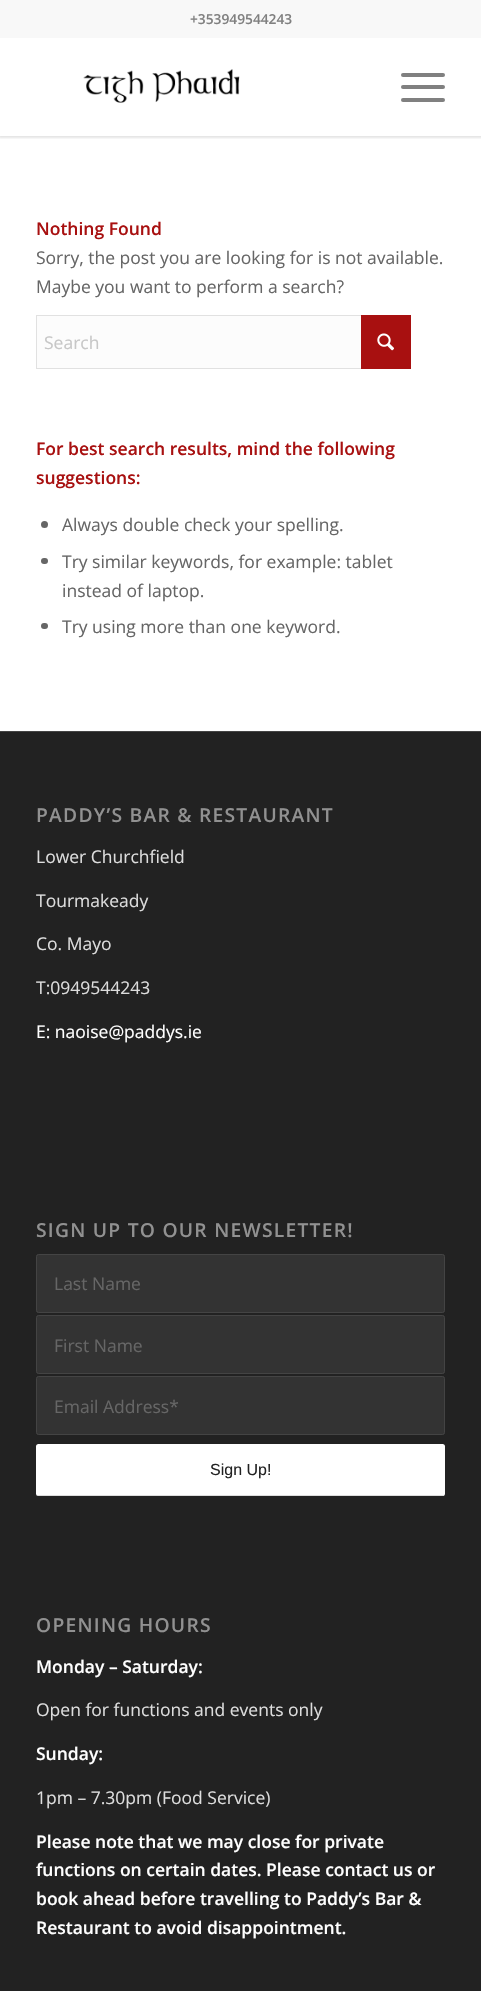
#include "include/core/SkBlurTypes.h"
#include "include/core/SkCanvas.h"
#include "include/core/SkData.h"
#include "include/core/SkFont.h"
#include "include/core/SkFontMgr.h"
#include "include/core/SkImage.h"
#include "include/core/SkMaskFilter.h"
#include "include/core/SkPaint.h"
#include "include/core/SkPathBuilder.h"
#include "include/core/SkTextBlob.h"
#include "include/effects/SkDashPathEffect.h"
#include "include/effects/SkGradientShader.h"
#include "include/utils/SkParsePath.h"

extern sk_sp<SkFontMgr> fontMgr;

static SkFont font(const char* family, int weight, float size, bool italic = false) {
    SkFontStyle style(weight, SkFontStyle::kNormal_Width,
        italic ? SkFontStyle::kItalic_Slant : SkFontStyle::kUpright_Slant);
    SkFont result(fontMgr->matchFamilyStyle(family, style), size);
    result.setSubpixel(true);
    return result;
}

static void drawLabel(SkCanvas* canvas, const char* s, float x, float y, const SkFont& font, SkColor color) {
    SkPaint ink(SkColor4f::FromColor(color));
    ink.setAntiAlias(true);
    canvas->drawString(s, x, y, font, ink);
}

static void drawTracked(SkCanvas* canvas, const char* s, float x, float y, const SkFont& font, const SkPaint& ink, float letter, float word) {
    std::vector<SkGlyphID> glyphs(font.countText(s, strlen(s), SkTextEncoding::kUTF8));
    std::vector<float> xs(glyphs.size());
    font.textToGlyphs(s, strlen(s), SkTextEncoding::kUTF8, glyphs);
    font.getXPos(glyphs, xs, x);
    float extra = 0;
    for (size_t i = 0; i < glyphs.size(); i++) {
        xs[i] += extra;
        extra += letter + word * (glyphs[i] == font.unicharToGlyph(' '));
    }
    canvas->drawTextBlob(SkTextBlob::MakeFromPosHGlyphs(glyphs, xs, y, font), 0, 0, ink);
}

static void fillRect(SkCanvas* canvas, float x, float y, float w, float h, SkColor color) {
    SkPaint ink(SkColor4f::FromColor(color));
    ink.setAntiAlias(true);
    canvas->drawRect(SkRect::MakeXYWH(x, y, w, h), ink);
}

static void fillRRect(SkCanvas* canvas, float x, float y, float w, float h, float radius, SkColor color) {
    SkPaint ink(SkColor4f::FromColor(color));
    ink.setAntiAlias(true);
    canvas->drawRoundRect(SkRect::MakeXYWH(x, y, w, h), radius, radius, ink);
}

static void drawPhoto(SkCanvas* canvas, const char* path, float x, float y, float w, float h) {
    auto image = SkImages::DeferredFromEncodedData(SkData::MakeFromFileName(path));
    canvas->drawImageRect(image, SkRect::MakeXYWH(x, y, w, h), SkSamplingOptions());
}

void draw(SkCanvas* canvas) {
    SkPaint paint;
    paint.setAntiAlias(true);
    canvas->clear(0xFFFFFFFF);
    canvas->save();
    canvas->clipRect(SkRect::MakeXYWH(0, 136, 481, 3));
    paint.setColor(0x1A000000);
    paint.setMaskFilter(SkMaskFilter::MakeBlur(kNormal_SkBlurStyle, 1));
    canvas->drawRect(SkRect::MakeXYWH(-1, -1, 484, 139), paint);
    paint.setMaskFilter(nullptr);
    canvas->restore();
    fillRect(canvas, 0, 0, 481, 38, 0xFFF8F8F8);
    SkFont font1 = font("Open Sans", 600, 13.75f);
    drawLabel(canvas, "+353949544243", 190, 24, font1, 0xFF808080);
    drawPhoto(canvas, "assets/img1.png", 83, 69, 157, 34);
    fillRRect(canvas, 401, 85, 44, 4, 2, 0xFF808080);
    fillRRect(canvas, 401, 73, 44, 4, 2, 0xFF808080);
    fillRRect(canvas, 401, 98, 44, 4, 2, 0xFF808080);
    SkFont font2 = font("Open Sans", 600, 17.5f);
    drawLabel(canvas, "Nothing Found", 36, 235, font2, 0xFFA81010);
    SkFont font3 = font("Open Sans", 400, 17.5f);
    drawLabel(canvas, "Sorry, the post you are looking for is not available.", 36, 264, font3, 0xFF666666);
    drawLabel(canvas, "Maybe you want to perform a search?", 36, 293, font3, 0xFF666666);
    fillRect(canvas, 37, 316, 324, 52, 0xFFFCFCFC);
    paint.setStroke(true);
    paint.setStrokeWidth(1);
    paint.setColor(0xFFE1E1E1);
    canvas->drawRect(SkRect::MakeXYWH(36.5f, 315.5f, 374, 53), paint);
    fillRect(canvas, 361, 315, 50, 54, 0xFFA81010);
    drawLabel(canvas, "Search", 44, 349, font3, 0xFFC7C7C7);
    drawPhoto(canvas, "assets/img2.png", 377, 333, 17, 18);
    drawLabel(canvas, "For best search results, mind the following", 36, 455, font2, 0xFFA81010);
    drawLabel(canvas, "suggestions:", 36, 484, font2, 0xFFA81010);
    paint.setStroke(false);
    paint.setColor(0xFF666666);
    canvas->drawCircle(44.5f, 524.5f, 3.5f, paint);
    drawLabel(canvas, "Always double check your spelling.", 62, 531, font3, 0xFF666666);
    fillRRect(canvas, 41, 558, 7, 6, 3, 0xFF666666);
    drawLabel(canvas, "Try similar keywords, for example: tablet", 62, 568, font3, 0xFF666666);
    drawLabel(canvas, "instead of laptop.", 62, 597, font3, 0xFF666666);
    fillRRect(canvas, 41, 623, 7, 6, 3, 0xFF666666);
    drawLabel(canvas, "Try using more than one keyword.", 62, 633, font3, 0xFF666666);
    fillRect(canvas, 0, 732, 481, 1259, 0xFF222222);
    fillRect(canvas, 0, 731, 481, 1, 0xFF444444);
    SkFont font4 = font("Open Sans", 600, 19.25f);
    paint.setColor(0xFF919191);
    drawTracked(canvas, "PADDY’S BAR & RESTAURANT", 36, 822, font4, paint, 1.25f, 0);
    drawLabel(canvas, "Lower Churchfield", 36, 863, font3, 0xFFDDDDDD);
    drawLabel(canvas, "Tourmakeady", 36, 907, font3, 0xFFDDDDDD);
    drawLabel(canvas, "Co. Mayo", 36, 950, font3, 0xFFDDDDDD);
    drawLabel(canvas, "T:0949544243", 36, 994, font3, 0xFFDDDDDD);
    drawLabel(canvas, "E: naoise@paddys.ie", 36, 1038, font3, 0xFFFFFFFF);
    drawTracked(canvas, "SIGN UP TO OUR NEWSLETTER!", 36, 1237, font4, paint, 1.25f, 0);
    paint.setColor(0xFF333333);
    canvas->drawRoundRect(SkRect::MakeXYWH(36.5f, 1254.5f, 408, 58), 2, 2, paint);
    paint.setStroke(true);
    paint.setColor(0xFF444444);
    canvas->drawRoundRect(SkRect::MakeXYWH(36.5f, 1254.5f, 408, 58), 2, 2, paint);
    drawLabel(canvas, "Last Name", 54, 1290, font3, 0xFF666666);
    paint.setStroke(false);
    paint.setColor(0xFF333333);
    canvas->drawRoundRect(SkRect::MakeXYWH(36.5f, 1315.5f, 408, 58), 2, 2, paint);
    paint.setStroke(true);
    paint.setColor(0xFF444444);
    canvas->drawRoundRect(SkRect::MakeXYWH(36.5f, 1315.5f, 408, 58), 2, 2, paint);
    drawLabel(canvas, "First Name", 54, 1352, font3, 0xFF666666);
    paint.setStroke(false);
    paint.setColor(0xFF333333);
    canvas->drawRoundRect(SkRect::MakeXYWH(36.5f, 1376.5f, 408, 58), 2, 2, paint);
    paint.setStroke(true);
    paint.setColor(0xFF444444);
    canvas->drawRoundRect(SkRect::MakeXYWH(36.5f, 1376.5f, 408, 58), 2, 2, paint);
    drawLabel(canvas, "Email Address*", 54, 1413, font3, 0xFF666666);
    fillRRect(canvas, 36, 1444, 409, 52, 2.5f, 0xFFFFFFFF);
    fillRect(canvas, 38, 1495, 406, 1, 0xFFDDDDDD);
    SkFont font5 = font("Liberation Sans", 400, 16);
    drawLabel(canvas, "Sign Up!", 210, 1475, font5, 0xFF222222);
    paint.setStroke(false);
    paint.setColor(0xFF919191);
    drawTracked(canvas, "OPENING HOURS", 36, 1632, font4, paint, 1.25f, 0);
    drawLabel(canvas, "Monday – Saturday:", 36, 1673, font2, 0xFFFFFFFF);
    drawLabel(canvas, "Open for functions and events only", 36, 1716, font3, 0xFFDDDDDD);
    drawLabel(canvas, "Sunday:", 36, 1760, font2, 0xFFFFFFFF);
    drawLabel(canvas, "1pm – 7.30pm (Food Service)", 36, 1804, font3, 0xFFDDDDDD);
    drawLabel(canvas, "Please note that we may close for private", 36, 1848, font2, 0xFFFFFFFF);
    drawLabel(canvas, "functions on certain dates. Please contact us or", 36, 1876, font2, 0xFFFFFFFF);
    drawLabel(canvas, "book ahead before travelling to Paddy’s Bar &", 36, 1905, font2, 0xFFFFFFFF);
    drawLabel(canvas, "Restaurant to avoid disappointment.", 36, 1934, font2, 0xFFFFFFFF);
}
